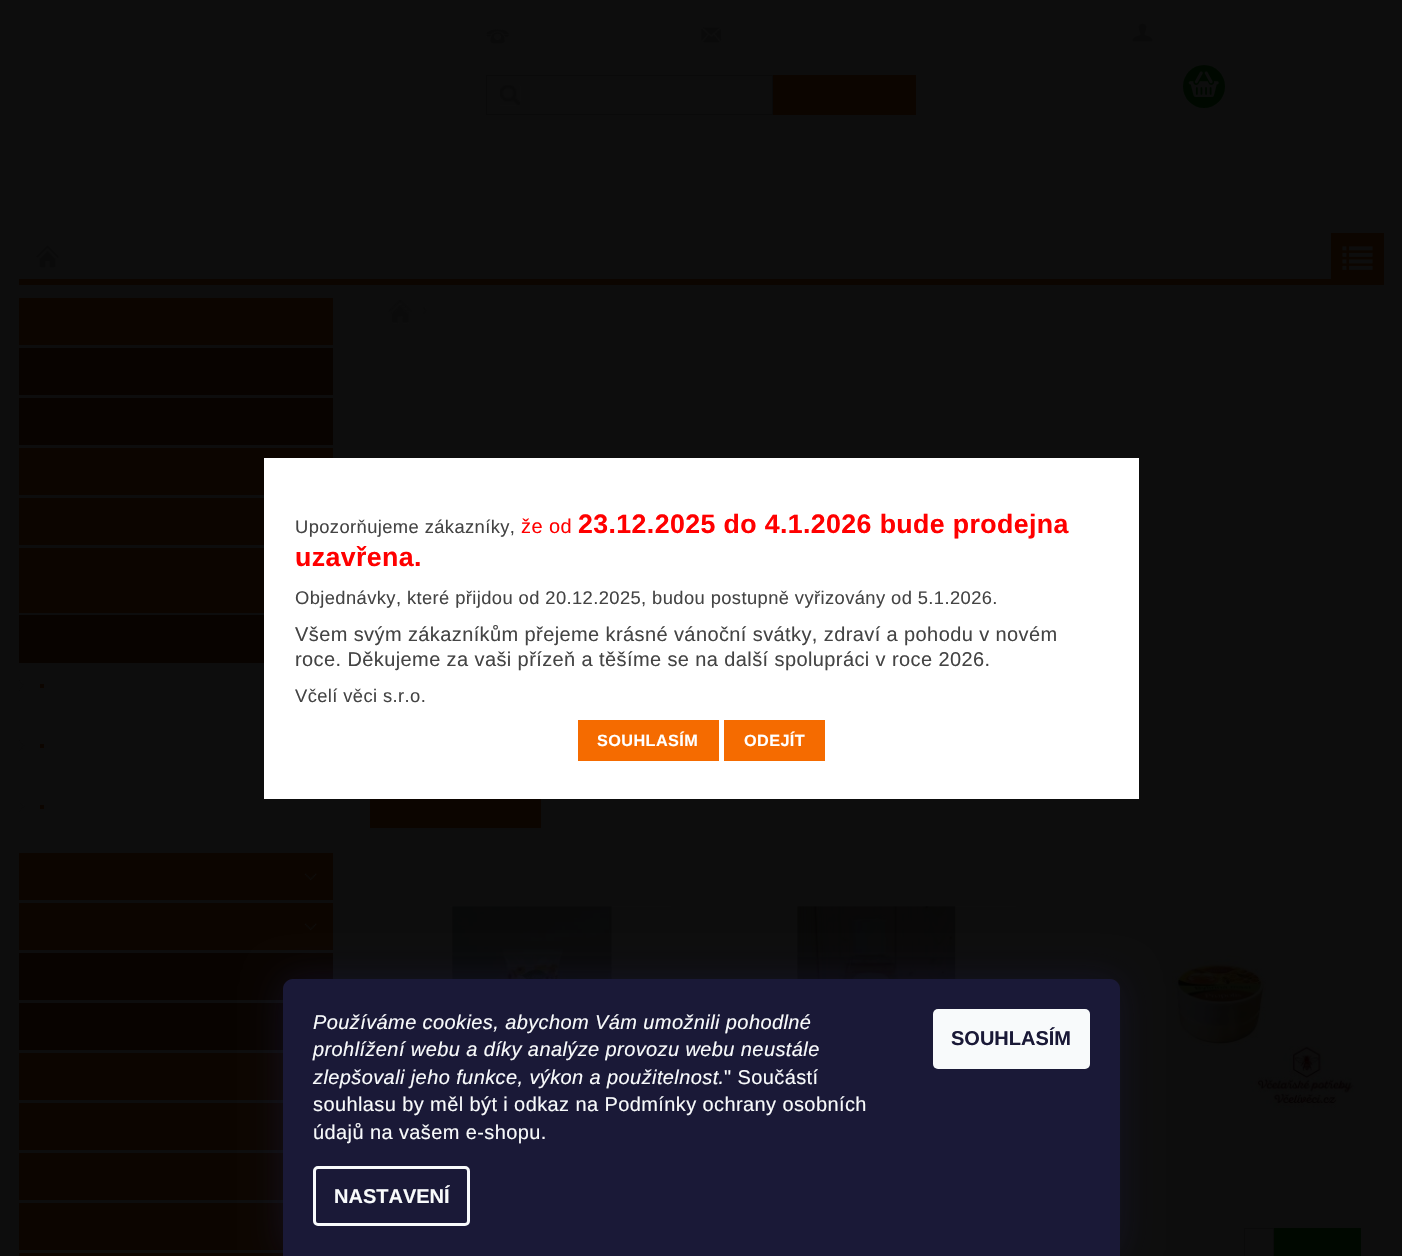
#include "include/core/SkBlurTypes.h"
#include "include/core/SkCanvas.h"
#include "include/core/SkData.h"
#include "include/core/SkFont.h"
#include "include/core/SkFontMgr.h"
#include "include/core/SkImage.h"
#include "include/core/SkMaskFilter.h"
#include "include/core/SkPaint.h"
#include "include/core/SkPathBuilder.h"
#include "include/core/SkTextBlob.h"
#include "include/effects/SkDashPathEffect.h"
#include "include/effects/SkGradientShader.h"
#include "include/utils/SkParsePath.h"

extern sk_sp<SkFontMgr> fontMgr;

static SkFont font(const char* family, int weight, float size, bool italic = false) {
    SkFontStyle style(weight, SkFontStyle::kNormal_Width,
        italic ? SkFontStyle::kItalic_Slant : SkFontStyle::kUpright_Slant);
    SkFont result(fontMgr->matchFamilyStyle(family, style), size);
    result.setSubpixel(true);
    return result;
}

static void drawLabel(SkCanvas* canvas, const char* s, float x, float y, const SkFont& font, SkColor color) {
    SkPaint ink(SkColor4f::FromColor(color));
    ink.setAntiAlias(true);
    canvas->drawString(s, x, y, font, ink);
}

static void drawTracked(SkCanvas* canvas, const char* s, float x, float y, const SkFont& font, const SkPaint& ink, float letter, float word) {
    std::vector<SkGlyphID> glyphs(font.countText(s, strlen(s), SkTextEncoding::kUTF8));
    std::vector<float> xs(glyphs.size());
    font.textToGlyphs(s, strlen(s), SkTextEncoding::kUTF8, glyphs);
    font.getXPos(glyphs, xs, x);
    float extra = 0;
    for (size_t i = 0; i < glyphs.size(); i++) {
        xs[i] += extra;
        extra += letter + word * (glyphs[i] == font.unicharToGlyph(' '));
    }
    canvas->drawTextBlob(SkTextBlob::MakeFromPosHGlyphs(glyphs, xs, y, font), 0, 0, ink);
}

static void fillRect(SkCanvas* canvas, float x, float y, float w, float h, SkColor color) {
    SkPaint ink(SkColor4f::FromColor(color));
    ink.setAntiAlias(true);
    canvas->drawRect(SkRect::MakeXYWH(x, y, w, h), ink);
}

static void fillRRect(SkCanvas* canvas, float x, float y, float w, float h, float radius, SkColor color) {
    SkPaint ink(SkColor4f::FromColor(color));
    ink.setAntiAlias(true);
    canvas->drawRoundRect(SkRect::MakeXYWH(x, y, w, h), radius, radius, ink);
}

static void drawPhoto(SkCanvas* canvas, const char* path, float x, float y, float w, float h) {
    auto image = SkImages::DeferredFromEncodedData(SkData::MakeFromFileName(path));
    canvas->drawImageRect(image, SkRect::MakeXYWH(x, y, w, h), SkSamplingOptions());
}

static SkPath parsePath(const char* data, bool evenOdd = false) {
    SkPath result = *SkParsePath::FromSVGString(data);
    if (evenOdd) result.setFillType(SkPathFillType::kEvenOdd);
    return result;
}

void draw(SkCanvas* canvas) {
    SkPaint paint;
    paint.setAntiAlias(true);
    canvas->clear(0xFF0D0D0D);
    fillRect(canvas, 19, 279, 1312, 6, 0xFF0C0500);
    drawPhoto(canvas, "assets/img1.png", 486, 29, 23, 15);
    drawPhoto(canvas, "assets/img2.png", 701, 27, 21, 16);
    drawPhoto(canvas, "assets/img3.png", 500, 85, 21, 21);
    paint.setStroke(true);
    paint.setStrokeWidth(1);
    paint.setColor(0xFF0A0A0A);
    canvas->drawRect(SkRect::MakeXYWH(486.5f, 75.5f, 286, 39), paint);
    fillRect(canvas, 773, 75, 143, 40, 0xFF0C0500);
    drawPhoto(canvas, "assets/img4.png", 1132, 23, 21, 19);
    fillRRect(canvas, 1183, 65, 42, 43, 21, 0xFF000800);
    drawPhoto(canvas, "assets/img5.png", 1188, 71, 31, 26);
    drawPhoto(canvas, "assets/img6.png", 36, 245, 23, 23);
    fillRect(canvas, 1331, 233, 53, 52, 0xFF0C0500);
    drawPhoto(canvas, "assets/img7.png", 1342, 246, 31, 24);
    fillRect(canvas, 19, 298, 314, 47, 0xFF0C0500);
    fillRect(canvas, 19, 348, 314, 47, 0xFF080300);
    fillRect(canvas, 19, 398, 314, 47, 0xFF080300);
    fillRect(canvas, 19, 448, 314, 47, 0xFF0C0500);
    fillRect(canvas, 19, 498, 245, 47, 0xFF0C0500);
    fillRect(canvas, 19, 548, 245, 65, 0xFF0C0500);
    fillRect(canvas, 19, 615, 245, 48, 0xFF080300);
    drawPhoto(canvas, "assets/img8.png", 18, 680, 7, 11);
    fillRect(canvas, 40, 684, 4, 4, 0xFF0C0500);
    drawPhoto(canvas, "assets/img9.png", 18, 740, 7, 11);
    fillRect(canvas, 40, 744, 4, 4, 0xFF0C0500);
    drawPhoto(canvas, "assets/img10.png", 18, 802, 7, 10);
    fillRect(canvas, 40, 805, 4, 4, 0xFF0C0500);
    fillRect(canvas, 19, 853, 314, 47, 0xFF0C0500);
    drawPhoto(canvas, "assets/img11.png", 304, 873, 13, 8);
    fillRect(canvas, 19, 903, 314, 47, 0xFF0C0500);
    drawPhoto(canvas, "assets/img11.png", 304, 923, 13, 8);
    fillRect(canvas, 19, 953, 314, 47, 0xFF080300);
    fillRect(canvas, 19, 1003, 264, 47, 0xFF080300);
    fillRect(canvas, 19, 1053, 264, 47, 0xFF0C0500);
    fillRect(canvas, 19, 1103, 264, 47, 0xFF0C0500);
    fillRect(canvas, 19, 1153, 264, 47, 0xFF0C0500);
    fillRect(canvas, 19, 1203, 264, 47, 0xFF0C0500);
    fillRect(canvas, 19, 1253, 264, 3, 0xFF0C0500);
    drawPhoto(canvas, "assets/img12.png", 388, 300, 25, 24);
    drawPhoto(canvas, "assets/img13.png", 422, 307, 6, 7);
    fillRect(canvas, 370, 799, 171, 29, 0xFF0C0500);
    drawPhoto(canvas, "assets/img14.png", 450, 906, 221, 73);
    drawPhoto(canvas, "assets/img15.png", 797, 906, 219, 73);
    drawPhoto(canvas, "assets/img16.png", 1172, 953, 184, 155);
    canvas->drawRect(SkRect::MakeXYWH(1244.5f, 1228.5f, 29, 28), paint);
    paint.setColor(0xFF000800);
    canvas->drawRect(SkRect::MakeXYWH(1274.5f, 1228.5f, 86, 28), paint);
    fillRect(canvas, 1275, 1229, 85, 27, 0xFF000800);
    fillRect(canvas, 264, 458, 875, 341, 0xFFFFFFFF);
    SkFont font1 = font("Liberation Sans", 400, 18.35f);
    paint.setStroke(false);
    paint.setColor(0xFF444444);
    drawTracked(canvas, "Upozorňujeme zákazníky,", 295, 533, font1, paint, 0.4f, 0);
    SkFont font2 = font("Liberation Sans", 400, 20);
    paint.setColor(0xFFFF0000);
    drawTracked(canvas, "že od", 521, 533, font2, paint, 0.4f, 0);
    SkFont font3 = font("Liberation Sans", 700, 26.7f);
    drawTracked(canvas, "23.12.2025 do 4.1.2026 bude prodejna", 578, 533, font3, paint, 0.4f, 0);
    drawTracked(canvas, "uzavřena.", 295, 566, font3, paint, 0.4f, 0);
    paint.setColor(0xFF444444);
    drawTracked(canvas, "Objednávky, které přijdou od 20.12.2025, budou postupně vyřizovány od 5.1.2026.", 295, 604, font1, paint, 0.4f, 0);
    drawTracked(canvas, "Všem svým zákazníkům přejeme krásné vánoční svátky, zdraví a pohodu v novém", 295, 641, font2, paint, 0.4f, 0);
    drawTracked(canvas, "roce. Děkujeme za vaši přízeň a těšíme se na další spolupráci v roce 2026.", 295, 666, font2, paint, 0.4f, 0);
    drawTracked(canvas, "Včelí věci s.r.o.", 295, 702, font1, paint, 0.4f, 0);
    fillRect(canvas, 578, 720, 141, 41, 0xFFF56B00);
    SkFont font4 = font("Liberation Sans", 700, 16.25f);
    paint.setColor(0xFFFFFFFF);
    drawTracked(canvas, "SOUHLASÍM", 597, 746, font4, paint, 0.4f, 0);
    fillRect(canvas, 724, 720, 101, 41, 0xFFF56B00);
    drawTracked(canvas, "ODEJÍT", 744, 746, font4, paint, 0.4f, 0);
    paint.setColor(0x801B1939);
    paint.setMaskFilter(SkMaskFilter::MakeBlur(kNormal_SkBlurStyle, 19));
    canvas->drawRoundRect(SkRect::MakeXYWH(283, 979, 837, 277), 10, 10, paint);
    paint.setMaskFilter(nullptr);
    paint.setColor(0xFF1A1937);
    canvas->drawPath(parsePath("M293 979H1110C1115.5 979 1120 983.5 1120 989V1256H283V989C283 983.5 287.5 979 293 979Z"), paint);
    SkFont font5 = font("Liberation Sans", 400, 20, true);
    paint.setColor(0xFFF8FAFB);
    drawTracked(canvas, "Používáme cookies, abychom Vám umožnili pohodlné", 313, 1029, font5, paint, 0.4f, 0);
    drawTracked(canvas, "prohlížení webu a díky analýze provozu webu neustále", 313, 1056, font5, paint, 0.4f, 0);
    drawTracked(canvas, "zlepšovali jeho funkce, výkon a použitelnost.", 313, 1084, font5, paint, 0.4f, 0);
    drawTracked(canvas, "\" Součástí", 724, 1084, font2, paint, 0.4f, 0);
    drawTracked(canvas, "souhlasu by měl být i odkaz na Podmínky ochrany osobních", 313, 1111, font2, paint, 0.4f, 0);
    drawTracked(canvas, "údajů na vašem e-shopu.", 313, 1139, font2, paint, 0.4f, 0);
    paint.setStroke(true);
    paint.setStrokeWidth(3);
    canvas->drawRoundRect(SkRect::MakeXYWH(314.5f, 1167.5f, 154, 57), 3.5f, 3.5f, paint);
    SkFont font6 = font("Liberation Sans", 700, 20);
    drawLabel(canvas, "NASTAVENÍ", 334, 1203, font6, 0xFFF8FAFB);
    fillRRect(canvas, 933, 1009, 157, 60, 5, 0xFFF8FAFB);
    drawLabel(canvas, "SOUHLASÍM", 951, 1045, font6, 0xFF1A1937);
}
